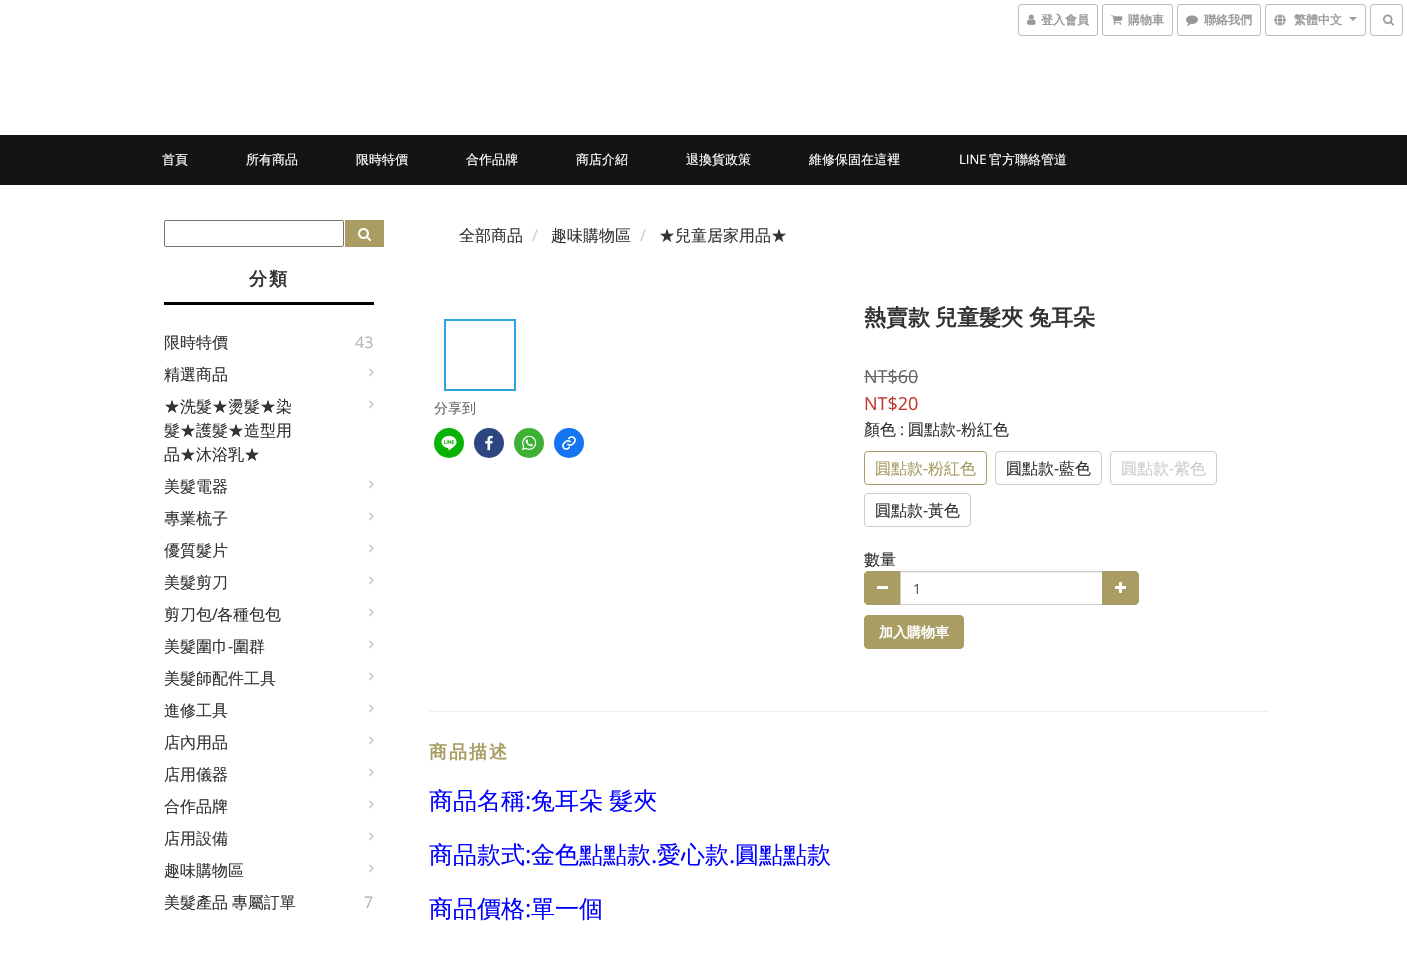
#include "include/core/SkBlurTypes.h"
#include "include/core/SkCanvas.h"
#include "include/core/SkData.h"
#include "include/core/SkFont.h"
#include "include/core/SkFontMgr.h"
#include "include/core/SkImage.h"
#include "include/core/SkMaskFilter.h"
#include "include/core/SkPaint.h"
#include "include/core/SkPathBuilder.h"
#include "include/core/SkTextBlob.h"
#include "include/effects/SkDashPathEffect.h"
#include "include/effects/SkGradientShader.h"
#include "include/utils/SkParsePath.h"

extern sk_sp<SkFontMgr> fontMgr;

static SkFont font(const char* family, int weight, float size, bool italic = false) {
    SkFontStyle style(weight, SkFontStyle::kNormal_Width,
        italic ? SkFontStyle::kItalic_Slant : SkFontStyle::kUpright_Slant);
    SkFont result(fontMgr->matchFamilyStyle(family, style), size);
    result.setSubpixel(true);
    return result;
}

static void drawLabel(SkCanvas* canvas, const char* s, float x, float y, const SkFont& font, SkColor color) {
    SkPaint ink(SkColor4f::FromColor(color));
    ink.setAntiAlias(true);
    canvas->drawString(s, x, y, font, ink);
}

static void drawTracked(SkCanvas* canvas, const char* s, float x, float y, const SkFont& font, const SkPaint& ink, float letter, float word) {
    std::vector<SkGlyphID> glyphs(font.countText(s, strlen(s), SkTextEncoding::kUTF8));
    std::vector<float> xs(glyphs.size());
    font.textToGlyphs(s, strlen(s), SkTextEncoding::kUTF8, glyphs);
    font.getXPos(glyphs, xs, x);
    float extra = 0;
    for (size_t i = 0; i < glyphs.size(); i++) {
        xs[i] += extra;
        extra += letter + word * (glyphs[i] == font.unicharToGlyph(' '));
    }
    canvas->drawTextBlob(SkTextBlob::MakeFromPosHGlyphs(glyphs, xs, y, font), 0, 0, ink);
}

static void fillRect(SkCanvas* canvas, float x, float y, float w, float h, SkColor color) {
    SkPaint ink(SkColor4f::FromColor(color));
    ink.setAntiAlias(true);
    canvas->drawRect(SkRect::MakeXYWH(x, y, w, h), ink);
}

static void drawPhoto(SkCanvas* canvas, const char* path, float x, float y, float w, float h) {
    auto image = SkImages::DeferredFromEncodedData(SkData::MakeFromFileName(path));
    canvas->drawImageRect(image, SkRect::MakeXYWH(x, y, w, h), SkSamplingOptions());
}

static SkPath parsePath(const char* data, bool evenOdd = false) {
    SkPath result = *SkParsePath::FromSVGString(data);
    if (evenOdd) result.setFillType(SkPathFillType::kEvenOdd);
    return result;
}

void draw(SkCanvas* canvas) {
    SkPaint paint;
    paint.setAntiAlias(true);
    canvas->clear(0xFFFFFFFF);
    paint.setStroke(true);
    paint.setStrokeWidth(1);
    paint.setColor(0xFFBBBBBB);
    canvas->drawRoundRect(SkRect::MakeXYWH(1018.5f, 4.5f, 79, 31), 2.5f, 2.5f, paint);
    drawPhoto(canvas, "assets/img1.png", 1027, 14, 9, 11);
    SkFont font1 = font("WenQuanYi Zen Hei", 700, 12);
    drawLabel(canvas, "登入會員", 1041, 24, font1, 0xFF999999);
    canvas->drawRoundRect(SkRect::MakeXYWH(1102.5f, 4.5f, 70, 31), 2.5f, 2.5f, paint);
    drawPhoto(canvas, "assets/img2.png", 1111, 15, 12, 10);
    drawLabel(canvas, "購物車", 1128, 24, font1, 0xFF999999);
    canvas->drawRoundRect(SkRect::MakeXYWH(1177.5f, 4.5f, 83, 31), 2.5f, 2.5f, paint);
    drawPhoto(canvas, "assets/img3.png", 1186, 15, 12, 11);
    drawLabel(canvas, "聯絡我們", 1204, 24, font1, 0xFF999999);
    canvas->drawRoundRect(SkRect::MakeXYWH(1265.5f, 4.5f, 100, 31), 2.5f, 2.5f, paint);
    drawPhoto(canvas, "assets/img4.png", 1274, 14, 12, 12);
    drawLabel(canvas, "繁體中文", 1294, 24, font1, 0xFF999999);
    paint.setStroke(false);
    paint.setColor(0xFF999999);
    canvas->drawPath(parsePath("M1349 17H1357L1353 21Z"), paint);
    paint.setStroke(true);
    paint.setColor(0xFFBBBBBB);
    canvas->drawRoundRect(SkRect::MakeXYWH(1370.5f, 4.5f, 32, 31), 2.5f, 2.5f, paint);
    drawPhoto(canvas, "assets/img5.png", 1383, 14, 11, 12);
    fillRect(canvas, 0, 135, 1407, 50, 0xFF141414);
    SkFont font2 = font("WenQuanYi Zen Hei", 500, 13);
    drawLabel(canvas, "首頁", 162, 164, font2, 0xFFFFFFFF);
    drawLabel(canvas, "所有商品", 246, 164, font2, 0xFFFFFFFF);
    drawLabel(canvas, "限時特價", 356, 164, font2, 0xFFFFFFFF);
    drawLabel(canvas, "合作品牌", 466, 164, font2, 0xFFFFFFFF);
    drawLabel(canvas, "商店介紹", 576, 164, font2, 0xFFFFFFFF);
    drawLabel(canvas, "退換貨政策", 686, 164, font2, 0xFFFFFFFF);
    drawLabel(canvas, "維修保固在這裡", 809, 164, font2, 0xFFFFFFFF);
    SkFont font3 = font("Open Sans", 400, 13);
    drawLabel(canvas, "LINE", 959, 164, font3, 0xFFFFFFFF);
    drawLabel(canvas, "官方聯絡管道", 989, 164, font2, 0xFFFFFFFF);
    paint.setColor(0xFF767676);
    canvas->drawRoundRect(SkRect::MakeXYWH(164.5f, 220.5f, 179, 26), 1.5f, 1.5f, paint);
    fillRect(canvas, 345, 220, 39, 27, 0xFFA99D63);
    drawPhoto(canvas, "assets/img6.png", 358, 228, 13, 13);
    fillRect(canvas, 164, 302, 210, 3, 0xFF000000);
    SkFont font4 = font("WenQuanYi Zen Hei", 700, 18);
    paint.setStroke(false);
    paint.setColor(0xFF333333);
    drawTracked(canvas, "分類", 249, 285, font4, paint, 2, 0);
    SkFont font5 = font("WenQuanYi Zen Hei", 500, 16);
    drawLabel(canvas, "限時特價", 164, 348, font5, 0xFF333333);
    SkFont font6 = font("Open Sans", 400, 16);
    drawLabel(canvas, "43", 355, 348, font6, 0xFFB3B3B3);
    drawLabel(canvas, "精選商品", 164, 380, font5, 0xFF333333);
    drawPhoto(canvas, "assets/img7.png", 369, 368, 5, 9);
    drawLabel(canvas, "★洗髮★燙髮★染", 164, 412, font5, 0xFF333333);
    drawLabel(canvas, "髮★護髮★造型用", 164, 436, font5, 0xFF333333);
    drawLabel(canvas, "品★沐浴乳★", 164, 460, font5, 0xFF333333);
    drawPhoto(canvas, "assets/img7.png", 369, 400, 5, 9);
    drawLabel(canvas, "美髮電器", 164, 492, font5, 0xFF333333);
    drawPhoto(canvas, "assets/img7.png", 369, 480, 5, 9);
    drawLabel(canvas, "專業梳子", 164, 524, font5, 0xFF333333);
    drawPhoto(canvas, "assets/img7.png", 369, 512, 5, 9);
    drawLabel(canvas, "優質髮片", 164, 556, font5, 0xFF333333);
    drawPhoto(canvas, "assets/img7.png", 369, 544, 5, 9);
    drawLabel(canvas, "美髮剪刀", 164, 588, font5, 0xFF333333);
    drawPhoto(canvas, "assets/img7.png", 369, 576, 5, 9);
    drawLabel(canvas, "剪刀包", 164, 620, font5, 0xFF333333);
    drawLabel(canvas, "/", 212, 620, font6, 0xFF333333);
    drawLabel(canvas, "各種包包", 217, 620, font5, 0xFF333333);
    drawPhoto(canvas, "assets/img7.png", 369, 608, 5, 9);
    drawLabel(canvas, "美髮圍巾", 164, 652, font5, 0xFF333333);
    drawLabel(canvas, "-", 228, 652, font6, 0xFF333333);
    drawLabel(canvas, "圍群", 233, 652, font5, 0xFF333333);
    drawPhoto(canvas, "assets/img7.png", 369, 640, 5, 9);
    drawLabel(canvas, "美髮師配件工具", 164, 684, font5, 0xFF333333);
    drawPhoto(canvas, "assets/img7.png", 369, 672, 5, 9);
    drawLabel(canvas, "進修工具", 164, 716, font5, 0xFF333333);
    drawPhoto(canvas, "assets/img7.png", 369, 704, 5, 9);
    drawLabel(canvas, "店內用品", 164, 748, font5, 0xFF333333);
    drawPhoto(canvas, "assets/img7.png", 369, 736, 5, 9);
    drawLabel(canvas, "店用儀器", 164, 780, font5, 0xFF333333);
    drawPhoto(canvas, "assets/img7.png", 369, 768, 5, 9);
    drawLabel(canvas, "合作品牌", 164, 812, font5, 0xFF333333);
    drawPhoto(canvas, "assets/img7.png", 369, 800, 5, 9);
    drawLabel(canvas, "店用設備", 164, 844, font5, 0xFF333333);
    drawPhoto(canvas, "assets/img7.png", 369, 832, 5, 9);
    drawLabel(canvas, "趣味購物區", 164, 876, font5, 0xFF333333);
    drawPhoto(canvas, "assets/img7.png", 369, 864, 5, 9);
    drawTracked(canvas, "美髮產品 專屬訂單", 164, 908, font5, paint, 0, -1);
    drawLabel(canvas, "7", 364, 908, font6, 0xFFB3B3B3);
    drawLabel(canvas, "全部商品", 459, 241, font5, 0xFF333333);
    drawLabel(canvas, "/", 532, 241, font6, 0xFFCCCCCC);
    drawLabel(canvas, "趣味購物區", 551, 241, font5, 0xFF333333);
    drawLabel(canvas, "/", 640, 241, font6, 0xFFCCCCCC);
    drawLabel(canvas, "★兒童居家用品★", 659, 241, font5, 0xFF333333);
    paint.setStroke(true);
    paint.setStrokeWidth(2);
    paint.setColor(0xFF30A4E1);
    canvas->drawRect(SkRect::MakeXYWH(445, 320, 70, 70), paint);
    SkFont font7 = font("WenQuanYi Zen Hei", 500, 14);
    drawLabel(canvas, "分享到", 434, 413, font7, 0xFF666666);
    paint.setStroke(false);
    paint.setColor(0xFF09B305);
    canvas->drawCircle(449, 443, 15, paint);
    drawPhoto(canvas, "assets/img8.png", 441, 435, 16, 16);
    paint.setColor(0xFF2D4682);
    canvas->drawCircle(489, 443, 15, paint);
    drawPhoto(canvas, "assets/img9.png", 485, 435, 8, 16);
    paint.setColor(0xFF3CB136);
    canvas->drawCircle(529, 443, 15, paint);
    drawPhoto(canvas, "assets/img10.png", 521, 435, 16, 16);
    paint.setColor(0xFF1575F0);
    canvas->drawCircle(569, 443, 15, paint);
    drawPhoto(canvas, "assets/img11.png", 562, 436, 14, 14);
    SkFont font8 = font("WenQuanYi Zen Hei", 700, 22);
    drawLabel(canvas, "熱賣款", 864, 325, font8, 0xFF333333);
    drawLabel(canvas, "兒童髮夾", 935, 325, font8, 0xFF333333);
    drawLabel(canvas, "兔耳朵", 1029, 325, font8, 0xFF333333);
    SkFont font9 = font("Open Sans", 400, 18);
    drawLabel(canvas, "NT$60", 864, 383, font9, 0xFF666666);
    fillRect(canvas, 864, 376, 54, 1, 0xFF666666);
    drawLabel(canvas, "NT$20", 864, 410, font9, 0xFFC0392B);
    drawLabel(canvas, "顏色", 864, 435, font5, 0xFF333333);
    drawLabel(canvas, ":", 900, 435, font6, 0xFF333333);
    drawLabel(canvas, "圓點款", 908, 435, font5, 0xFF333333);
    drawLabel(canvas, "-", 956, 435, font6, 0xFF333333);
    drawLabel(canvas, "粉紅色", 961, 435, font5, 0xFF333333);
    paint.setStroke(true);
    paint.setStrokeWidth(1);
    paint.setColor(0xFFA99D63);
    canvas->drawRoundRect(SkRect::MakeXYWH(864.5f, 451.5f, 122, 33), 3.5f, 3.5f, paint);
    drawLabel(canvas, "圓點款", 875, 474, font5, 0xFFA99D63);
    drawLabel(canvas, "-", 923, 474, font6, 0xFFA99D63);
    drawLabel(canvas, "粉紅色", 928, 474, font5, 0xFFA99D63);
    paint.setColor(0xFFCCCCCC);
    canvas->drawRoundRect(SkRect::MakeXYWH(995.5f, 451.5f, 106, 33), 3.5f, 3.5f, paint);
    drawLabel(canvas, "圓點款", 1006, 474, font5, 0xFF333333);
    drawLabel(canvas, "-", 1054, 474, font6, 0xFF333333);
    drawLabel(canvas, "藍色", 1059, 474, font5, 0xFF333333);
    canvas->drawRoundRect(SkRect::MakeXYWH(1110.5f, 451.5f, 106, 33), 3.5f, 3.5f, paint);
    drawLabel(canvas, "圓點款", 1121, 474, font5, 0xFFCCCCCC);
    drawLabel(canvas, "-", 1169, 474, font6, 0xFFCCCCCC);
    drawLabel(canvas, "紫色", 1174, 474, font5, 0xFFCCCCCC);
    canvas->drawRoundRect(SkRect::MakeXYWH(864.5f, 493.5f, 106, 33), 3.5f, 3.5f, paint);
    drawLabel(canvas, "圓點款", 875, 516, font5, 0xFF333333);
    drawLabel(canvas, "-", 923, 516, font6, 0xFF333333);
    drawLabel(canvas, "黃色", 928, 516, font5, 0xFF333333);
    drawLabel(canvas, "數量", 864, 565, font5, 0xFF333333);
    paint.setStroke(false);
    paint.setColor(0xFFA99D63);
    canvas->drawPath(parsePath("M868 571.5H900.5V604.5H868C866 604.5 864.5 603 864.5 601V575C864.5 573 866 571.5 868 571.5Z"), paint);
    paint.setStroke(true);
    canvas->drawPath(parsePath("M868 571.5H900.5V604.5H868C866 604.5 864.5 603 864.5 601V575C864.5 573 866 571.5 868 571.5Z"), paint);
    fillRect(canvas, 877, 586, 11, 3, 0xFFFFFFFF);
    fillRect(canvas, 901, 572, 201, 1, 0xFFECECEC);
    paint.setColor(0xFFCCCCCC);
    canvas->drawRect(SkRect::MakeXYWH(900.5f, 571.5f, 202, 33), paint);
    SkFont font10 = font("Open Sans", 400, 14);
    drawLabel(canvas, "1", 913, 594, font10, 0xFF555555);
    paint.setStroke(false);
    paint.setColor(0xFFA99D63);
    canvas->drawPath(parsePath("M1102.5 571.5H1135C1137 571.5 1138.5 573 1138.5 575V601C1138.5 603 1137 604.5 1135 604.5H1102.5Z"), paint);
    paint.setStroke(true);
    canvas->drawPath(parsePath("M1102.5 571.5H1135C1137 571.5 1138.5 573 1138.5 575V601C1138.5 603 1137 604.5 1135 604.5H1102.5Z"), paint);
    drawPhoto(canvas, "assets/img12.png", 1115, 582, 11, 11);
    paint.setStroke(false);
    canvas->drawRoundRect(SkRect::MakeXYWH(864.5f, 615.5f, 99, 33), 3.5f, 3.5f, paint);
    paint.setStroke(true);
    canvas->drawRoundRect(SkRect::MakeXYWH(864.5f, 615.5f, 99, 33), 3.5f, 3.5f, paint);
    SkFont font11 = font("WenQuanYi Zen Hei", 700, 14);
    drawLabel(canvas, "加入購物車", 879, 637, font11, 0xFFFFFFFF);
    fillRect(canvas, 429, 711, 840, 1, 0xFFEEEEEE);
    paint.setStroke(false);
    drawTracked(canvas, "商品描述", 429, 758, font4, paint, 2, 0);
    SkFont font12 = font("WenQuanYi Zen Hei", 500, 24);
    drawLabel(canvas, "商品名稱", 429, 809, font12, 0xFF0000FF);
    SkFont font13 = font("Open Sans", 400, 24);
    drawLabel(canvas, ":", 525, 809, font13, 0xFF0000FF);
    paint.setColor(0xFF0000FF);
    drawTracked(canvas, "兔耳朵 髮夾", 531, 809, font12, paint, 0, -1);
    drawLabel(canvas, "商品款式", 429, 863, font12, 0xFF0000FF);
    drawLabel(canvas, ":", 525, 863, font13, 0xFF0000FF);
    drawLabel(canvas, "金色點點款", 531, 863, font12, 0xFF0000FF);
    drawLabel(canvas, ".", 651, 863, font13, 0xFF0000FF);
    drawLabel(canvas, "愛心款", 657, 863, font12, 0xFF0000FF);
    drawLabel(canvas, ".", 729, 863, font13, 0xFF0000FF);
    drawLabel(canvas, "圓點點款", 735, 863, font12, 0xFF0000FF);
    drawLabel(canvas, "商品價格", 429, 917, font12, 0xFF0000FF);
    drawLabel(canvas, ":", 525, 917, font13, 0xFF0000FF);
    drawLabel(canvas, "單一個", 531, 917, font12, 0xFF0000FF);
}
